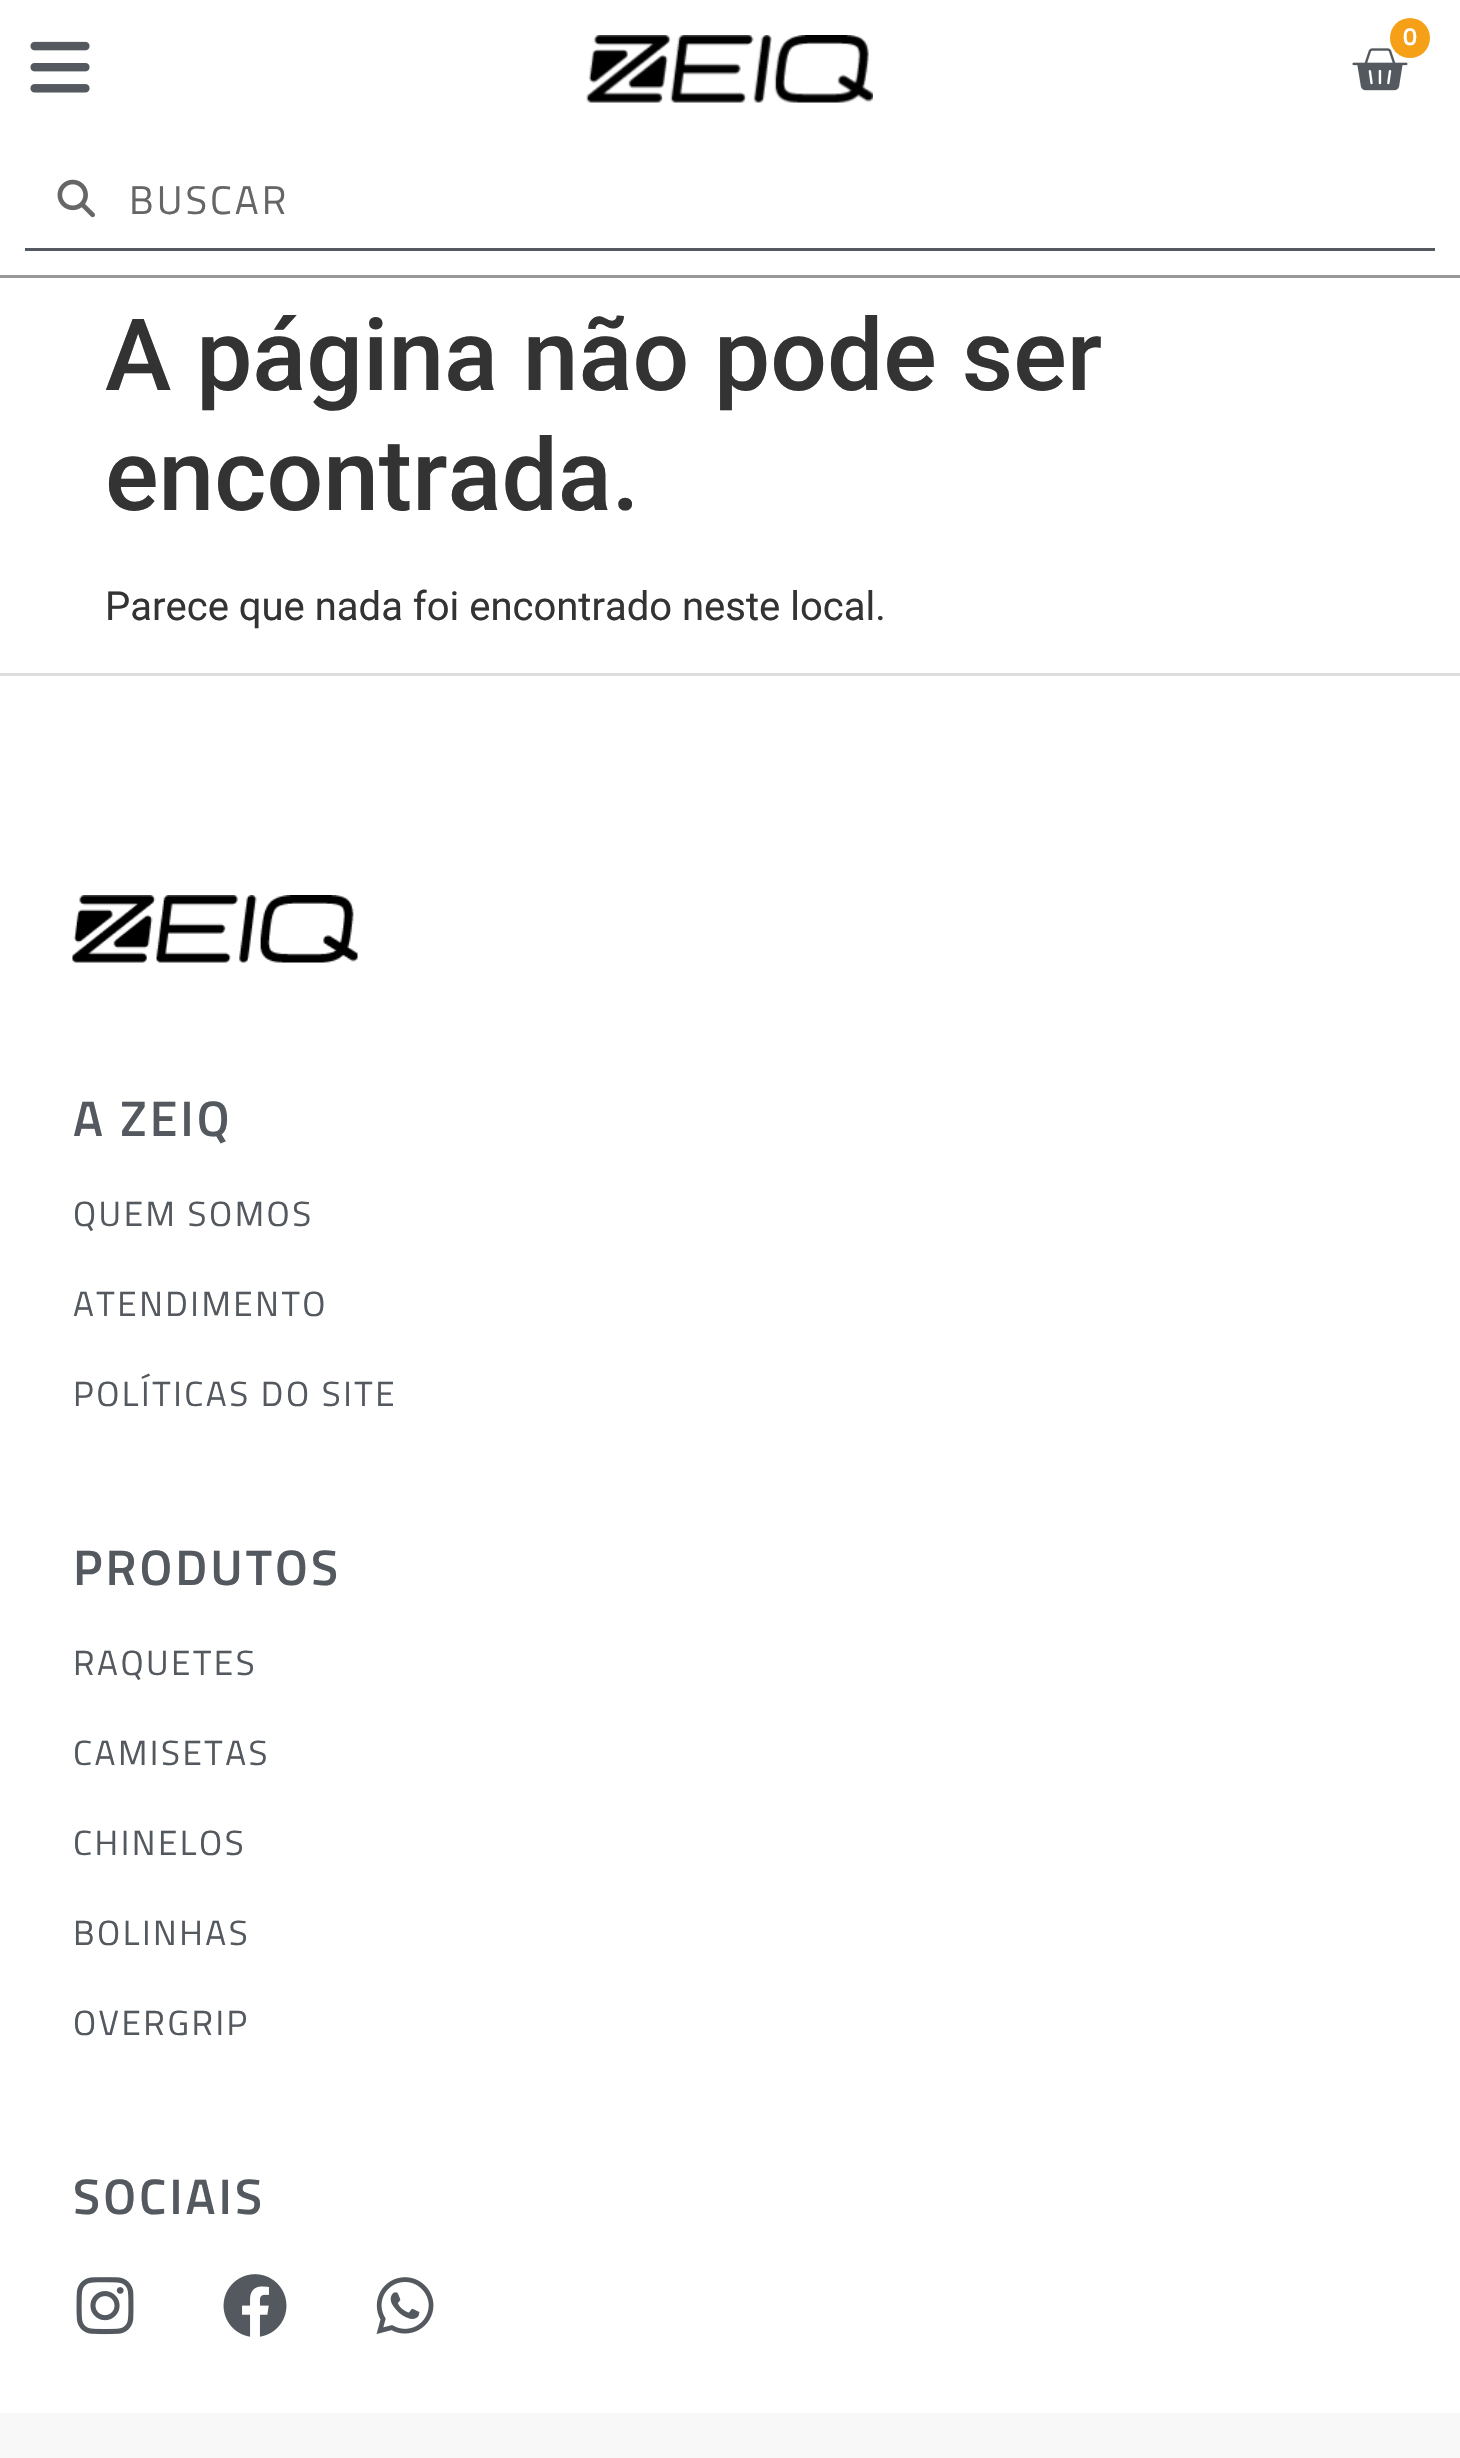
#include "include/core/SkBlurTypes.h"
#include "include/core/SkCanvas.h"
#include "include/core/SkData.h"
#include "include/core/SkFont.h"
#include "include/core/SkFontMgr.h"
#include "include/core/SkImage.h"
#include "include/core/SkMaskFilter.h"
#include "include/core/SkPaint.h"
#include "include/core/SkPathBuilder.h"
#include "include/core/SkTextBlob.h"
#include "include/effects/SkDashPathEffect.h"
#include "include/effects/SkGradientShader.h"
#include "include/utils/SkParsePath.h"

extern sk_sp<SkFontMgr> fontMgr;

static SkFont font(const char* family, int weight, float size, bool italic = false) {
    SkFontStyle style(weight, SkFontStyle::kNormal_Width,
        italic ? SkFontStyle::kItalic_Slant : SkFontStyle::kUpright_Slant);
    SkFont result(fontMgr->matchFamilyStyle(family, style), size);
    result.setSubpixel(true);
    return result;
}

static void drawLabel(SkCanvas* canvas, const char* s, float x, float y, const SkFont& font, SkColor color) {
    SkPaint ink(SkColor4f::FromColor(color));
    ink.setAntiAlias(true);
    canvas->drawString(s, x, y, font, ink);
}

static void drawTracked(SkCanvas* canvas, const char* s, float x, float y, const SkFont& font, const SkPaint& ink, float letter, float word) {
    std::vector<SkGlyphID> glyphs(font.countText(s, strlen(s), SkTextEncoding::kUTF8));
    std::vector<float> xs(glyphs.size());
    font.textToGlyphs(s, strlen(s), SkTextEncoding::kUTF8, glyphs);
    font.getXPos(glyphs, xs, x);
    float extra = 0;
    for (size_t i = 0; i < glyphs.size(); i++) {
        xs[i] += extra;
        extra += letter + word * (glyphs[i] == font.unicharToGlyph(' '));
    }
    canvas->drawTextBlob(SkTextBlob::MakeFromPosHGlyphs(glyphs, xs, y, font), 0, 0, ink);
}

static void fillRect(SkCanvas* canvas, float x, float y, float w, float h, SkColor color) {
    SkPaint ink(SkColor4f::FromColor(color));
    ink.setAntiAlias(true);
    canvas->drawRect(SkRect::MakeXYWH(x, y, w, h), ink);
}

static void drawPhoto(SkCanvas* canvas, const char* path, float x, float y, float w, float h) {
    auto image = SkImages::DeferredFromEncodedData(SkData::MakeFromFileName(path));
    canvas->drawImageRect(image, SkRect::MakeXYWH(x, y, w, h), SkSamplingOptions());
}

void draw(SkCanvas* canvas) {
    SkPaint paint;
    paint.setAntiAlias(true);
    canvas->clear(0xFFFFFFFF);
    fillRect(canvas, 0, 275, 1460, 3, 0xFF999999);
    drawPhoto(canvas, "assets/img1.png", 30, 41, 60, 52);
    drawPhoto(canvas, "assets/img2.png", 586, 35, 287, 68);
    drawPhoto(canvas, "assets/img3.png", 1352, 48, 56, 43);
    paint.setColor(0xFFF5A017);
    canvas->drawCircle(1410, 38, 20, paint);
    SkFont font1 = font("Titillium Web", 600, 25);
    drawLabel(canvas, "0", 1403, 45, font1, 0xFFFFFFFF);
    fillRect(canvas, 25, 248, 1410, 3, 0xFF54595F);
    drawPhoto(canvas, "assets/img4.png", 57, 179, 38, 39);
    SkFont font2 = font("Titillium Web", 400, 40);
    paint.setColor(0xFF666666);
    drawTracked(canvas, "BUSCAR", 129, 214, font2, paint, 3, 0);
    SkFont font3 = font("Roboto", 500, 100);
    drawLabel(canvas, "A página não pode ser", 105, 390, font3, 0xFF333333);
    drawLabel(canvas, "encontrada.", 105, 510, font3, 0xFF333333);
    SkFont font4 = font("Roboto", 400, 40);
    drawLabel(canvas, "Parece que nada foi encontrado neste local.", 105, 620, font4, 0xFF333333);
    fillRect(canvas, 0, 673, 1460, 3, 0xFFDDDDDD);
    drawPhoto(canvas, "assets/img5.png", 72, 895, 286, 68);
    SkFont font5 = font("Titillium Web", 600, 50);
    paint.setColor(0xFF54595F);
    drawTracked(canvas, "A ZEIQ", 73, 1136, font5, paint, 3, 0);
    SkFont font6 = font("Titillium Web", 400, 35);
    drawTracked(canvas, "QUEM SOMOS", 73, 1226, font6, paint, 2.5f, 0);
    drawTracked(canvas, "ATENDIMENTO", 73, 1316, font6, paint, 2.5f, 0);
    drawTracked(canvas, "POLÍTICAS DO SITE", 73, 1406, font6, paint, 2.5f, 0);
    drawTracked(canvas, "PRODUTOS", 73, 1585, font5, paint, 3, 0);
    drawTracked(canvas, "RAQUETES", 73, 1675, font6, paint, 2.5f, 0);
    drawTracked(canvas, "CAMISETAS", 73, 1765, font6, paint, 2.5f, 0);
    drawTracked(canvas, "CHINELOS", 73, 1855, font6, paint, 2.5f, 0);
    drawTracked(canvas, "BOLINHAS", 73, 1945, font6, paint, 2.5f, 0);
    drawTracked(canvas, "OVERGRIP", 73, 2035, font6, paint, 2.5f, 0);
    drawTracked(canvas, "SOCIAIS", 73, 2214, font5, paint, 3, 0);
    drawPhoto(canvas, "assets/img6.png", 76, 2277, 58, 58);
    drawPhoto(canvas, "assets/img7.png", 223, 2274, 64, 63);
    drawPhoto(canvas, "assets/img8.png", 376, 2277, 58, 57);
    fillRect(canvas, 0, 2413, 1460, 45, 0xFFF8F8F8);
}
